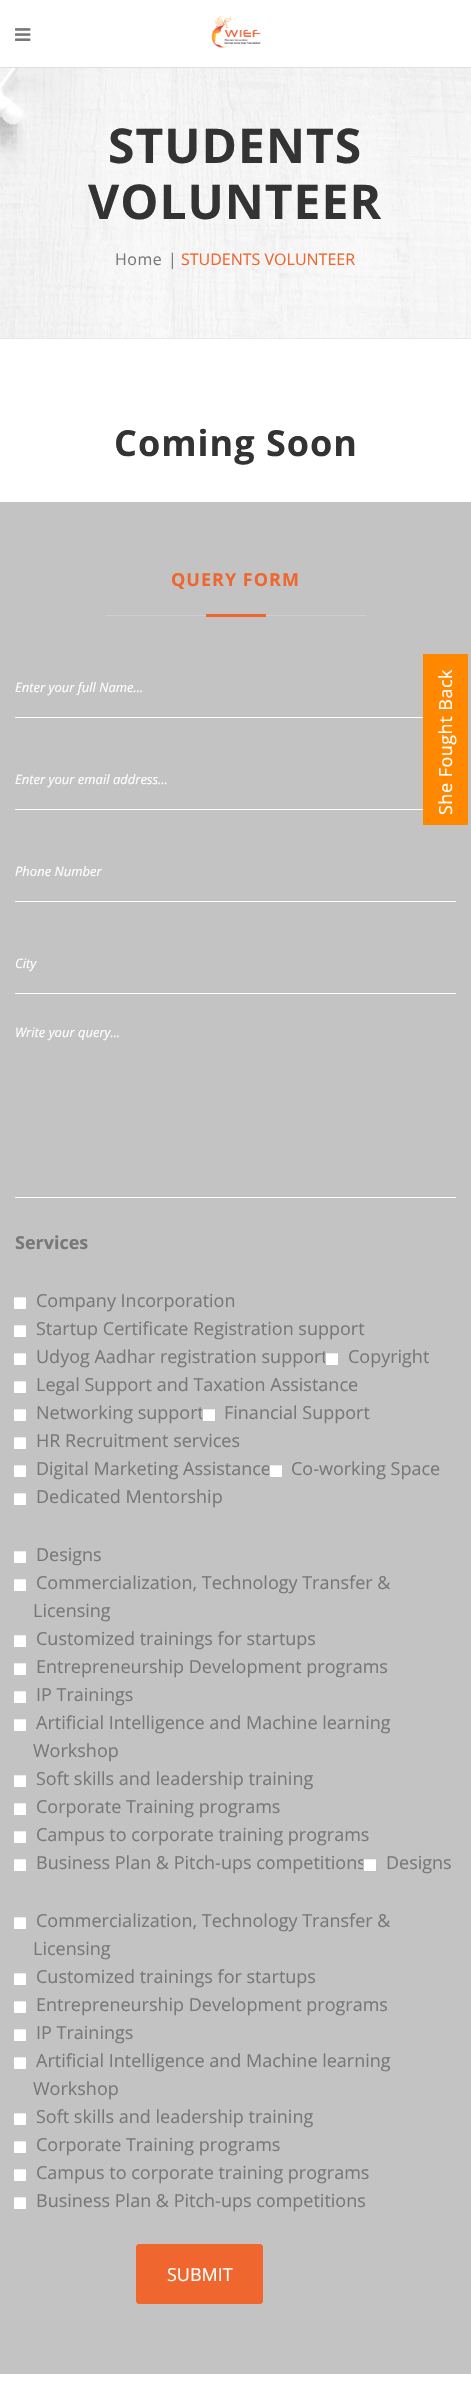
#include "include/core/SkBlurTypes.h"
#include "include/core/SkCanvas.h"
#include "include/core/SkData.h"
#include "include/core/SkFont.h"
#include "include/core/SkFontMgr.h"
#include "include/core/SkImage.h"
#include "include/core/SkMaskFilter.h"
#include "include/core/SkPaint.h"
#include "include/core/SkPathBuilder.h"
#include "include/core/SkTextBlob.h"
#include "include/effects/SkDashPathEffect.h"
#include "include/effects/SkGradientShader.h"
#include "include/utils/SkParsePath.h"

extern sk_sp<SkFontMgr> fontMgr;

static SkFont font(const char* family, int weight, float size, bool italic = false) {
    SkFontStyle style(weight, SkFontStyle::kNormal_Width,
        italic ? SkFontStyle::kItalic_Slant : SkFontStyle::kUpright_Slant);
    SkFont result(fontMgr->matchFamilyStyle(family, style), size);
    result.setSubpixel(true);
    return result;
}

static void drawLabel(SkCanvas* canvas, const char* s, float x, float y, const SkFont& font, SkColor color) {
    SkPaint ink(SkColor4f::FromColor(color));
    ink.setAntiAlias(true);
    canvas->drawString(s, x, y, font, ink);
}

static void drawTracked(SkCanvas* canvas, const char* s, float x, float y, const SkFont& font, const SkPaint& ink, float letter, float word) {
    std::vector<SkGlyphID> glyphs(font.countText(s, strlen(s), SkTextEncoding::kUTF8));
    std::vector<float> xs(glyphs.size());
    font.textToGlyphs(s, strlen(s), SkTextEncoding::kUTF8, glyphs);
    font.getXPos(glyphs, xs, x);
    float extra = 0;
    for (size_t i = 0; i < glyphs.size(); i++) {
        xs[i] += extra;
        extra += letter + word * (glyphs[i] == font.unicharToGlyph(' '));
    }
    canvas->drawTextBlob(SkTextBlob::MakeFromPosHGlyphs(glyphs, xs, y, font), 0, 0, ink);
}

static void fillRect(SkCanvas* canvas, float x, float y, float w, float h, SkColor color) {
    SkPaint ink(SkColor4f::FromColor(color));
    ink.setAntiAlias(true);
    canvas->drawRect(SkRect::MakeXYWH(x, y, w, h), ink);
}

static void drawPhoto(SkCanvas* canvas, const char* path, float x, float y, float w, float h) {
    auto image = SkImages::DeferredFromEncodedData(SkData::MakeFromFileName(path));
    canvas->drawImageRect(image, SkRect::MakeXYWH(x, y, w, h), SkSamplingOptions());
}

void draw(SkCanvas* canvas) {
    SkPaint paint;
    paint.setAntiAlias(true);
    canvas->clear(0xFFFFFFFF);
    fillRect(canvas, 0, 67, 471, 1, 0xFFE0E0E0);
    drawPhoto(canvas, "assets/img1.png", 15, 28, 16, 13);
    drawPhoto(canvas, "assets/img2.png", 211, 16, 50, 32);
    drawPhoto(canvas, "assets/img3.png", 0, 68, 471, 270);
    fillRect(canvas, 0, 338, 471, 1, 0xFFEAEAEA);
    SkFont font1 = font("Open Sans", 700, 48);
    paint.setColor(0xFF333333);
    drawTracked(canvas, "STUDENTS", 108, 163, font1, paint, 1, 0);
    drawTracked(canvas, "VOLUNTEER", 88, 219, font1, paint, 1, 0);
    SkFont font2 = font("Open Sans", 400, 16);
    paint.setColor(0xFF787878);
    drawTracked(canvas, "Home", 115, 265, font2, paint, 0.5f, 0);
    drawLabel(canvas, "|", 168, 265, font2, 0xFF787878);
    drawLabel(canvas, "STUDENTS VOLUNTEER", 181, 265, font2, 0xFFEF662F);
    SkFont font3 = font("Open Sans", 700, 36);
    paint.setColor(0xFF333333);
    drawTracked(canvas, "Coming Soon", 114, 456, font3, paint, 1, 0);
    fillRect(canvas, 0, 502, 471, 1872, 0xFFC3C3C3);
    SkFont font4 = font("Open Sans", 700, 18);
    paint.setColor(0xFFEF662F);
    drawTracked(canvas, "QUERY FORM", 171, 586, font4, paint, 1, 0);
    fillRect(canvas, 106, 615, 260, 1, 0xFFCECECE);
    fillRect(canvas, 206, 614, 60, 3, 0xFFEF662F);
    fillRect(canvas, 15, 717, 408, 1, 0xFFFFFFFF);
    SkFont font5 = font("Open Sans", 400, 13, true);
    drawLabel(canvas, "Enter your full Name...", 15, 692, font5, 0xFFFFFFFF);
    fillRect(canvas, 15, 809, 408, 1, 0xFFFFFFFF);
    drawLabel(canvas, "Enter your email address...", 15, 784, font5, 0xFFFFFFFF);
    fillRect(canvas, 15, 901, 441, 1, 0xFFFFFFFF);
    drawLabel(canvas, "Phone Number", 15, 876, font5, 0xFFFFFFFF);
    fillRect(canvas, 15, 993, 441, 1, 0xFFFFFFFF);
    drawLabel(canvas, "City", 15, 968, font5, 0xFFFFFFFF);
    fillRect(canvas, 15, 1197, 441, 1, 0xFFFFFFFF);
    drawLabel(canvas, "Write your query...", 15, 1037, font5, 0xFFFFFFFF);
    drawLabel(canvas, "Services", 15, 1249, font4, 0xFF787878);
    fillRect(canvas, 14, 1298, 12, 11, 0xFFFFFFFF);
    fillRect(canvas, 14, 1297, 12, 1, 0xFFECECEC);
    SkFont font6 = font("Open Sans", 400, 18);
    drawLabel(canvas, "Company Incorporation", 36, 1307, font6, 0xFF787878);
    fillRect(canvas, 14, 1326, 12, 11, 0xFFFFFFFF);
    fillRect(canvas, 14, 1325, 12, 1, 0xFFECECEC);
    drawLabel(canvas, "Startup Certificate Registration support", 36, 1335, font6, 0xFF787878);
    fillRect(canvas, 14, 1354, 12, 11, 0xFFFFFFFF);
    fillRect(canvas, 14, 1353, 12, 1, 0xFFECECEC);
    drawLabel(canvas, "Udyog Aadhar registration support", 36, 1363, font6, 0xFF787878);
    fillRect(canvas, 326, 1354, 12, 11, 0xFFFFFFFF);
    fillRect(canvas, 326, 1353, 12, 1, 0xFFECECEC);
    paint.setStroke(true);
    paint.setStrokeWidth(1);
    paint.setColor(0xFFC1C1C1);
    canvas->drawRect(SkRect::MakeXYWH(325.5f, 1352.5f, 13, 13), paint);
    drawLabel(canvas, "Copyright", 348, 1363, font6, 0xFF787878);
    fillRect(canvas, 14, 1382, 12, 11, 0xFFFFFFFF);
    fillRect(canvas, 14, 1381, 12, 1, 0xFFECECEC);
    drawLabel(canvas, "Legal Support and Taxation Assistance", 36, 1391, font6, 0xFF787878);
    fillRect(canvas, 14, 1410, 12, 11, 0xFFFFFFFF);
    fillRect(canvas, 14, 1409, 12, 1, 0xFFECECEC);
    drawLabel(canvas, "Networking support", 36, 1419, font6, 0xFF787878);
    fillRect(canvas, 203, 1410, 12, 11, 0xFFFFFFFF);
    fillRect(canvas, 203, 1409, 12, 1, 0xFFECECEC);
    canvas->drawRect(SkRect::MakeXYWH(202.5f, 1408.5f, 13, 13), paint);
    drawLabel(canvas, "Financial Support", 224, 1419, font6, 0xFF787878);
    fillRect(canvas, 14, 1438, 12, 11, 0xFFFFFFFF);
    fillRect(canvas, 14, 1437, 12, 1, 0xFFECECEC);
    drawLabel(canvas, "HR Recruitment services", 36, 1447, font6, 0xFF787878);
    fillRect(canvas, 14, 1466, 12, 11, 0xFFFFFFFF);
    fillRect(canvas, 14, 1465, 12, 1, 0xFFECECEC);
    drawLabel(canvas, "Digital Marketing Assistance", 36, 1475, font6, 0xFF787878);
    fillRect(canvas, 270, 1466, 12, 11, 0xFFFFFFFF);
    fillRect(canvas, 270, 1465, 12, 1, 0xFFECECEC);
    canvas->drawRect(SkRect::MakeXYWH(269.5f, 1464.5f, 13, 13), paint);
    drawLabel(canvas, "Co-working Space", 291, 1475, font6, 0xFF787878);
    fillRect(canvas, 14, 1494, 12, 11, 0xFFFFFFFF);
    fillRect(canvas, 14, 1493, 12, 1, 0xFFECECEC);
    drawLabel(canvas, "Dedicated Mentorship", 36, 1503, font6, 0xFF787878);
    fillRect(canvas, 14, 1552, 12, 11, 0xFFFFFFFF);
    fillRect(canvas, 14, 1551, 12, 1, 0xFFECECEC);
    drawLabel(canvas, "Designs", 36, 1561, font6, 0xFF787878);
    fillRect(canvas, 14, 1580, 12, 11, 0xFFFFFFFF);
    fillRect(canvas, 14, 1579, 12, 1, 0xFFECECEC);
    drawLabel(canvas, "Commercialization, Technology Transfer &", 36, 1589, font6, 0xFF787878);
    drawLabel(canvas, "Licensing", 33, 1617, font6, 0xFF787878);
    fillRect(canvas, 14, 1636, 12, 11, 0xFFFFFFFF);
    fillRect(canvas, 14, 1635, 12, 1, 0xFFECECEC);
    drawLabel(canvas, "Customized trainings for startups", 36, 1645, font6, 0xFF787878);
    fillRect(canvas, 14, 1664, 12, 11, 0xFFFFFFFF);
    fillRect(canvas, 14, 1663, 12, 1, 0xFFECECEC);
    drawLabel(canvas, "Entrepreneurship Development programs", 36, 1673, font6, 0xFF787878);
    fillRect(canvas, 14, 1692, 12, 11, 0xFFFFFFFF);
    fillRect(canvas, 14, 1691, 12, 1, 0xFFECECEC);
    drawLabel(canvas, "IP Trainings", 36, 1701, font6, 0xFF787878);
    fillRect(canvas, 14, 1720, 12, 11, 0xFFFFFFFF);
    fillRect(canvas, 14, 1719, 12, 1, 0xFFECECEC);
    drawLabel(canvas, "Artificial Intelligence and Machine learning", 36, 1729, font6, 0xFF787878);
    drawLabel(canvas, "Workshop", 33, 1757, font6, 0xFF787878);
    fillRect(canvas, 14, 1776, 12, 11, 0xFFFFFFFF);
    fillRect(canvas, 14, 1775, 12, 1, 0xFFECECEC);
    drawLabel(canvas, "Soft skills and leadership training", 36, 1785, font6, 0xFF787878);
    fillRect(canvas, 14, 1804, 12, 11, 0xFFFFFFFF);
    fillRect(canvas, 14, 1803, 12, 1, 0xFFECECEC);
    drawLabel(canvas, "Corporate Training programs", 36, 1813, font6, 0xFF787878);
    fillRect(canvas, 14, 1832, 12, 11, 0xFFFFFFFF);
    fillRect(canvas, 14, 1831, 12, 1, 0xFFECECEC);
    drawLabel(canvas, "Campus to corporate training programs", 36, 1841, font6, 0xFF787878);
    fillRect(canvas, 14, 1860, 12, 11, 0xFFFFFFFF);
    fillRect(canvas, 14, 1859, 12, 1, 0xFFECECEC);
    drawLabel(canvas, "Business Plan & Pitch-ups competitions", 36, 1869, font6, 0xFF787878);
    fillRect(canvas, 364, 1860, 12, 11, 0xFFFFFFFF);
    fillRect(canvas, 364, 1859, 12, 1, 0xFFECECEC);
    canvas->drawRect(SkRect::MakeXYWH(363.5f, 1858.5f, 13, 13), paint);
    drawLabel(canvas, "Designs", 386, 1869, font6, 0xFF787878);
    fillRect(canvas, 14, 1918, 12, 11, 0xFFFFFFFF);
    fillRect(canvas, 14, 1917, 12, 1, 0xFFECECEC);
    drawLabel(canvas, "Commercialization, Technology Transfer &", 36, 1927, font6, 0xFF787878);
    drawLabel(canvas, "Licensing", 33, 1955, font6, 0xFF787878);
    fillRect(canvas, 14, 1974, 12, 11, 0xFFFFFFFF);
    fillRect(canvas, 14, 1973, 12, 1, 0xFFECECEC);
    drawLabel(canvas, "Customized trainings for startups", 36, 1983, font6, 0xFF787878);
    fillRect(canvas, 14, 2002, 12, 11, 0xFFFFFFFF);
    fillRect(canvas, 14, 2001, 12, 1, 0xFFECECEC);
    drawLabel(canvas, "Entrepreneurship Development programs", 36, 2011, font6, 0xFF787878);
    fillRect(canvas, 14, 2030, 12, 11, 0xFFFFFFFF);
    fillRect(canvas, 14, 2029, 12, 1, 0xFFECECEC);
    drawLabel(canvas, "IP Trainings", 36, 2039, font6, 0xFF787878);
    fillRect(canvas, 14, 2058, 12, 11, 0xFFFFFFFF);
    fillRect(canvas, 14, 2057, 12, 1, 0xFFECECEC);
    drawLabel(canvas, "Artificial Intelligence and Machine learning", 36, 2067, font6, 0xFF787878);
    drawLabel(canvas, "Workshop", 33, 2095, font6, 0xFF787878);
    fillRect(canvas, 14, 2114, 12, 11, 0xFFFFFFFF);
    fillRect(canvas, 14, 2113, 12, 1, 0xFFECECEC);
    drawLabel(canvas, "Soft skills and leadership training", 36, 2123, font6, 0xFF787878);
    fillRect(canvas, 14, 2142, 12, 11, 0xFFFFFFFF);
    fillRect(canvas, 14, 2141, 12, 1, 0xFFECECEC);
    drawLabel(canvas, "Corporate Training programs", 36, 2151, font6, 0xFF787878);
    fillRect(canvas, 14, 2170, 12, 11, 0xFFFFFFFF);
    fillRect(canvas, 14, 2169, 12, 1, 0xFFECECEC);
    drawLabel(canvas, "Campus to corporate training programs", 36, 2179, font6, 0xFF787878);
    fillRect(canvas, 14, 2198, 12, 11, 0xFFFFFFFF);
    fillRect(canvas, 14, 2197, 12, 1, 0xFFECECEC);
    drawLabel(canvas, "Business Plan & Pitch-ups competitions", 36, 2207, font6, 0xFF787878);
    paint.setStroke(false);
    paint.setColor(0xFFEF662F);
    canvas->drawRoundRect(SkRect::MakeXYWH(136.5f, 2244.5f, 126, 59), 2.5f, 2.5f, paint);
    paint.setStroke(true);
    canvas->drawRoundRect(SkRect::MakeXYWH(136.5f, 2244.5f, 126, 59), 2.5f, 2.5f, paint);
    drawLabel(canvas, "SUBMIT", 167, 2281, font6, 0xFFFFFFFF);
    fillRect(canvas, 423, 654, 45, 171, 0xFFFF8800);
    paint.setStroke(false);
    paint.setColor(0xFFFFFFFF);
    canvas->save();
    canvas->rotate(-90, 452, 815);
    drawTracked(canvas, "She Fought Back", 452, 815, font6, paint, 0.5f, 0);
    canvas->restore();
}
